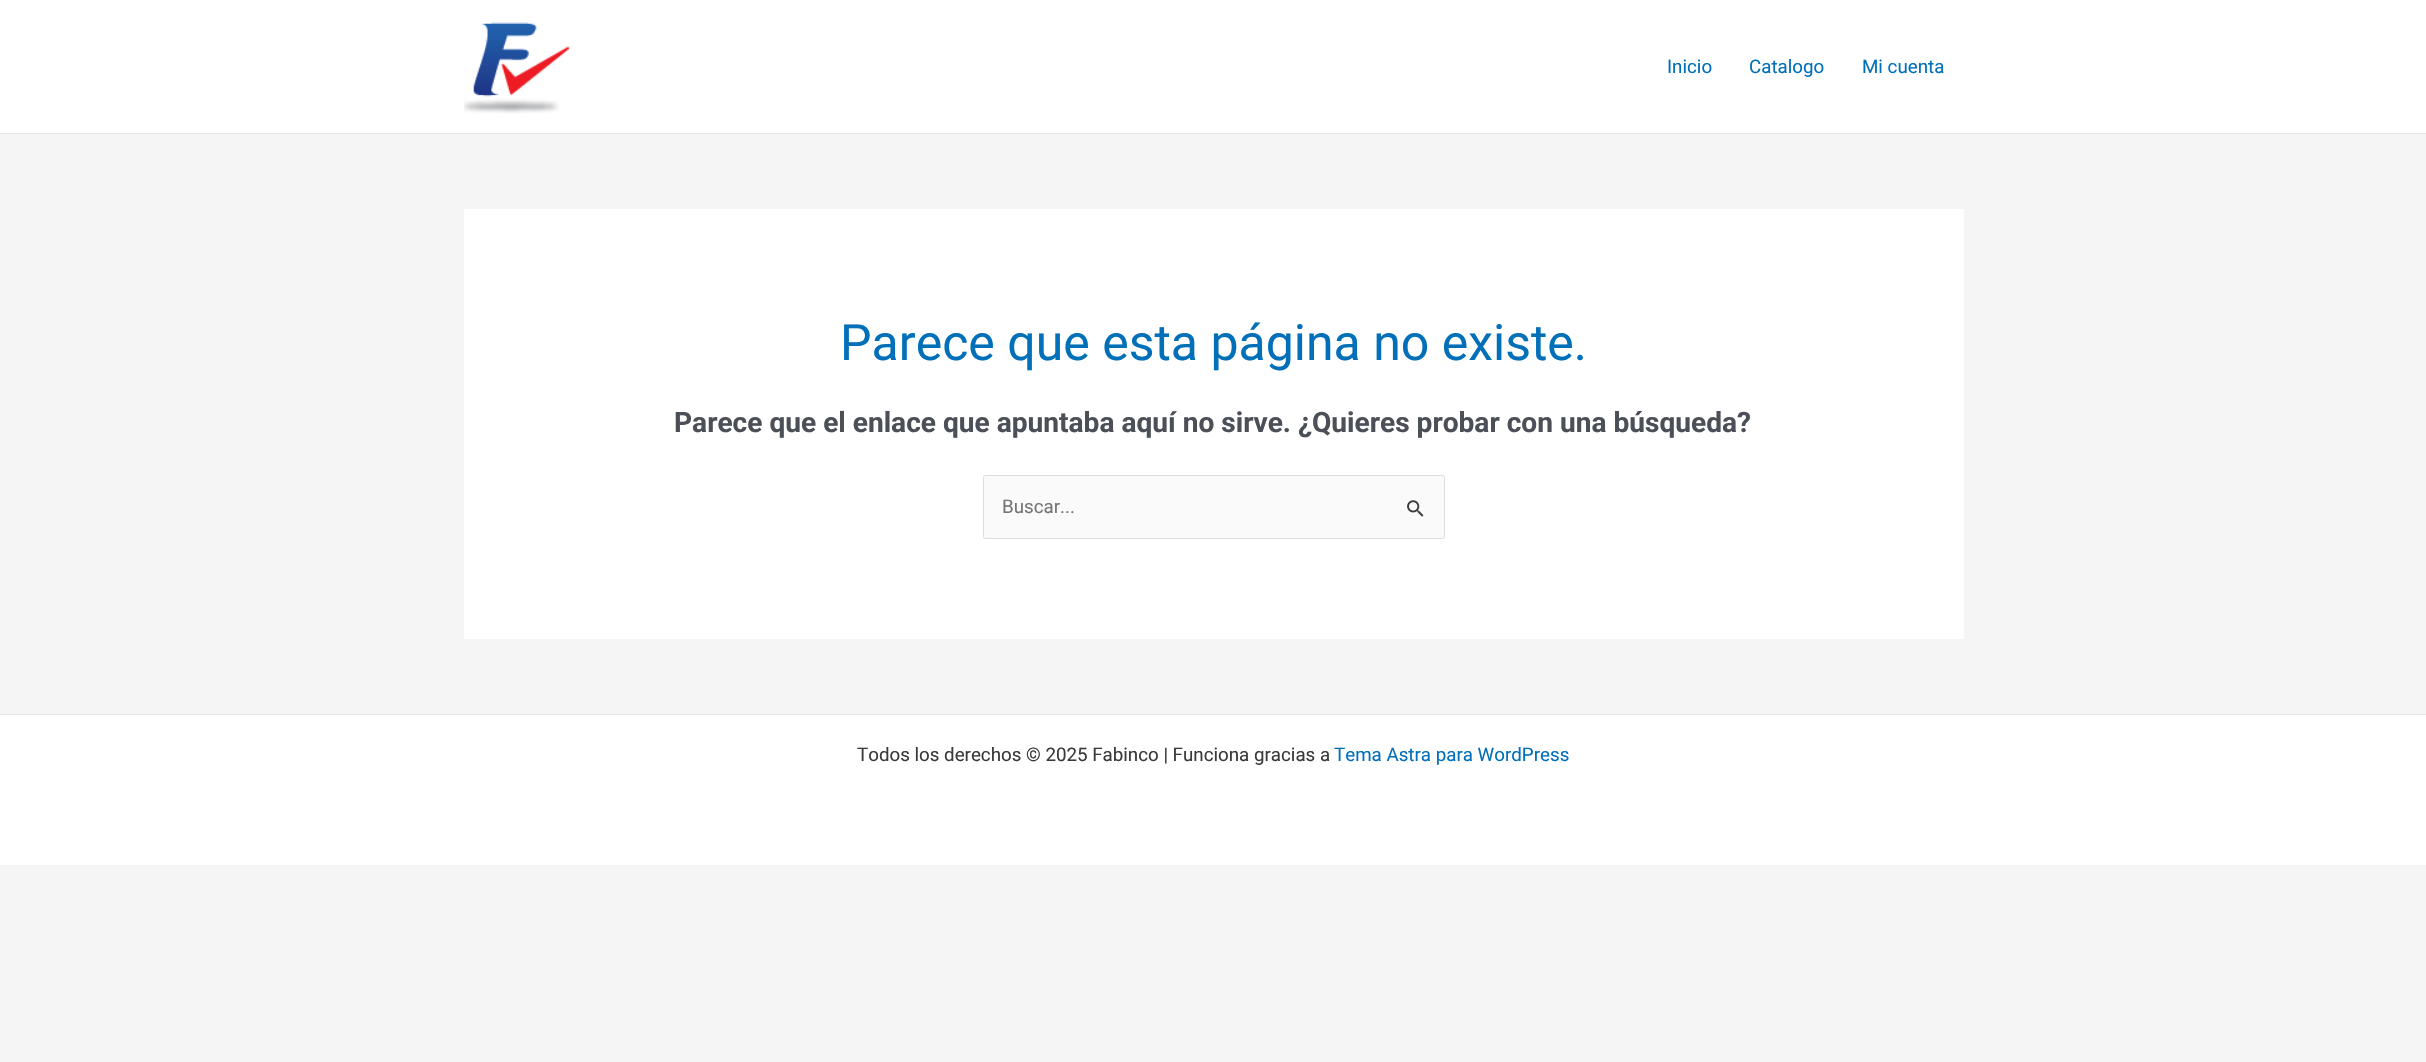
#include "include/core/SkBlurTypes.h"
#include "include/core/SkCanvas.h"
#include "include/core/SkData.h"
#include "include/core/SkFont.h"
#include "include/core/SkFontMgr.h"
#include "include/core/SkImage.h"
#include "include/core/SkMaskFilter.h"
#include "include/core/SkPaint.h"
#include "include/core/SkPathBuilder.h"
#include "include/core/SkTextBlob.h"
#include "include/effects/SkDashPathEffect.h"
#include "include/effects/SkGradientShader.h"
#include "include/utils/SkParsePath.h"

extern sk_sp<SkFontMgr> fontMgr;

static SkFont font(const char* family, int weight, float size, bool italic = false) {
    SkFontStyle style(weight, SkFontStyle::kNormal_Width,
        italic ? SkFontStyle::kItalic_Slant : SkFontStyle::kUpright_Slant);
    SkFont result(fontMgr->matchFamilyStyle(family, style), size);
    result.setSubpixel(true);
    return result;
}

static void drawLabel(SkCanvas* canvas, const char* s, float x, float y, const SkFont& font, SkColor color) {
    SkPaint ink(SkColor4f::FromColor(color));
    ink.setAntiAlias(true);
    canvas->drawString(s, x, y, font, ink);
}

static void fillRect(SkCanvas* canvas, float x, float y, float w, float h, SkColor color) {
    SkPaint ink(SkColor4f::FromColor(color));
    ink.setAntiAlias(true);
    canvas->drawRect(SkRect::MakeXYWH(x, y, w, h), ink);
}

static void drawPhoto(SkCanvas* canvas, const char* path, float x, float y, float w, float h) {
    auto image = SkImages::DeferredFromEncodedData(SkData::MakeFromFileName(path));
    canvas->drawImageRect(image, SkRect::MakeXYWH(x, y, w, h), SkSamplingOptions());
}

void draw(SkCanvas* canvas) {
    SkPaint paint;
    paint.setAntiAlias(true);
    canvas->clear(0xFFF5F5F5);
    fillRect(canvas, 0, 0, 2426, 133, 0xFFFFFFFF);
    fillRect(canvas, 0, 133, 2426, 1, 0xFFE5E5E5);
    drawPhoto(canvas, "assets/img1.png", 464, 22, 106, 92);
    SkFont font1 = font("Roboto", 400, 18.75f);
    drawLabel(canvas, "Inicio", 1667, 73, font1, 0xFF0170B9);
    drawLabel(canvas, "Catalogo", 1749, 73, font1, 0xFF0170B9);
    drawLabel(canvas, "Mi cuenta", 1862, 73, font1, 0xFF0170B9);
    fillRect(canvas, 464, 209, 1500, 430, 0xFFFFFFFF);
    SkFont font2 = font("Roboto", 400, 50);
    drawLabel(canvas, "Parece que esta página no existe.", 840, 360, font2, 0xFF0170B9);
    SkFont font3 = font("Roboto", 700, 28.1f);
    drawLabel(canvas, "Parece que el enlace que apuntaba aquí no sirve. ¿Quieres probar con una búsqueda?", 674, 432, font3, 0xFF4B4F58);
    paint.setColor(0xFFFAFAFA);
    canvas->drawRoundRect(SkRect::MakeXYWH(983.5f, 475.5f, 461, 63), 2, 2, paint);
    paint.setStroke(true);
    paint.setStrokeWidth(1);
    paint.setColor(0xFFDDDDDD);
    canvas->drawRoundRect(SkRect::MakeXYWH(983.5f, 475.5f, 461, 63), 2, 2, paint);
    drawLabel(canvas, "Buscar...", 1002, 513, font1, 0xFF757575);
    drawPhoto(canvas, "assets/img2.png", 1407, 500, 17, 17);
    fillRect(canvas, 0, 715, 2426, 150, 0xFFFFFFFF);
    fillRect(canvas, 0, 714, 2426, 1, 0xFFE5E5E5);
    drawLabel(canvas, "Todos los derechos © 2025 Fabinco | Funciona gracias a", 857, 761, font1, 0xFF3A3A3A);
    drawLabel(canvas, "Tema Astra para WordPress", 1334, 761, font1, 0xFF0170B9);
}
